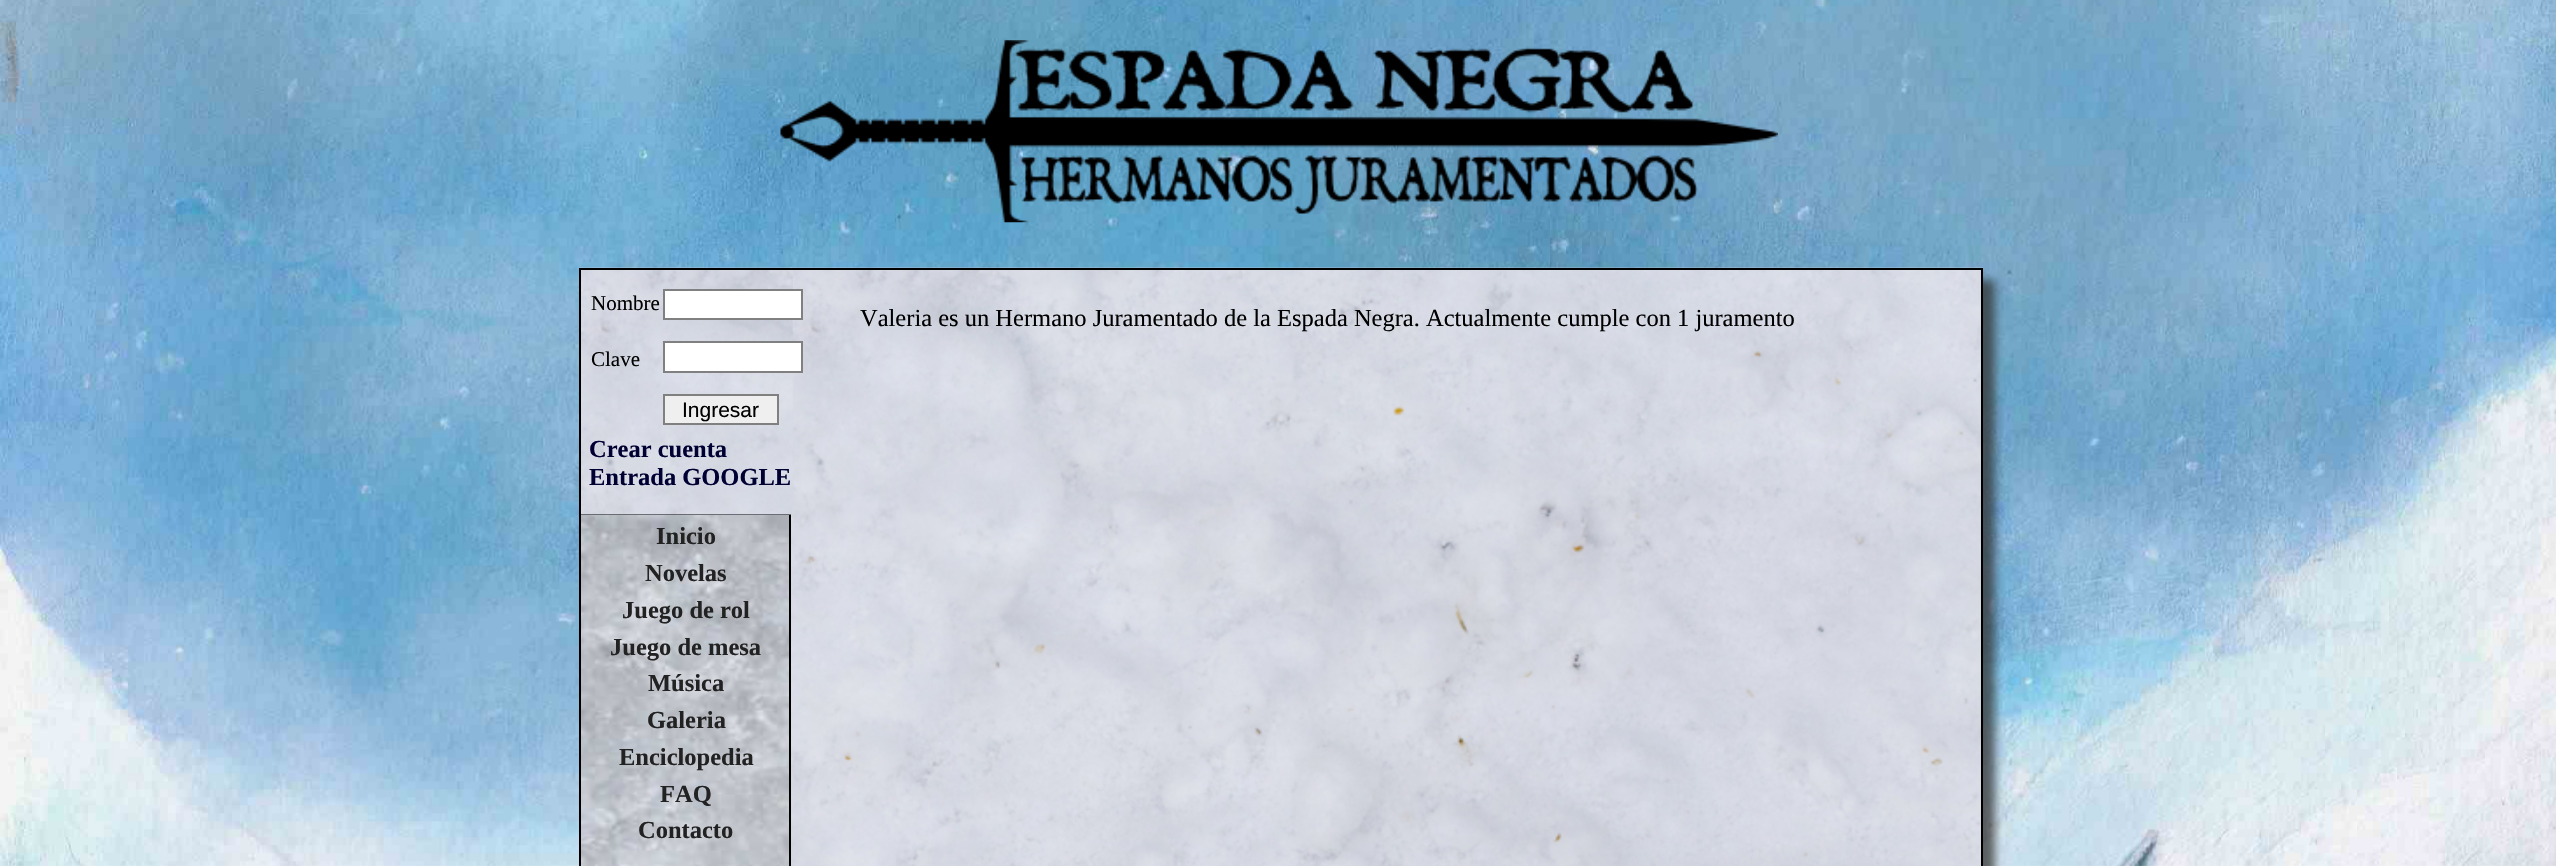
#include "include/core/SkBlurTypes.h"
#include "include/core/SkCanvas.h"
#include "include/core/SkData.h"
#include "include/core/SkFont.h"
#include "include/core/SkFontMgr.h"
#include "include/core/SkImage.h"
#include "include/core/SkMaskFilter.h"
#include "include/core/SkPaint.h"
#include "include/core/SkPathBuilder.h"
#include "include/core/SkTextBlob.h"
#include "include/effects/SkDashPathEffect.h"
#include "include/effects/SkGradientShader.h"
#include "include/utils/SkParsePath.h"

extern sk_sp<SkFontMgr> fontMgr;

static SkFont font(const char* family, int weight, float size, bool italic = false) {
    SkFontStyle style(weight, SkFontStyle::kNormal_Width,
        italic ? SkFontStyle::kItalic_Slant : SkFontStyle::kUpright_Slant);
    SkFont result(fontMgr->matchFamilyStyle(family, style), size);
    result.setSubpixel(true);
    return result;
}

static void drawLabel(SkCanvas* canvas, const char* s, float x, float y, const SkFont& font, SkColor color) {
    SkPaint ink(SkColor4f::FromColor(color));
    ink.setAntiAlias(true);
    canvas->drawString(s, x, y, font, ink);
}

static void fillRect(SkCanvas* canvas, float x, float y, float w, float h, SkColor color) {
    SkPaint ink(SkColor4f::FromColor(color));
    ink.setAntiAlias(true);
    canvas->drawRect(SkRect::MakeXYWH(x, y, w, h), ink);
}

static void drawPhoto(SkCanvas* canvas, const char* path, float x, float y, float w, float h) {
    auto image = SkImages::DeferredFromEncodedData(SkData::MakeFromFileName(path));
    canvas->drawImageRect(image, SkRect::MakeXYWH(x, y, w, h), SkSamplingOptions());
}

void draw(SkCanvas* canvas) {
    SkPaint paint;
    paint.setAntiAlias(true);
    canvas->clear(0xFFFFFFFF);
    drawPhoto(canvas, "assets/img1.png", 0, 0, 2556, 866);
    drawPhoto(canvas, "assets/img2.png", 780, 40, 998, 183);
    drawPhoto(canvas, "assets/img5.png", 581, 515, 208, 351);
    paint.setStroke(true);
    paint.setStrokeWidth(2);
    paint.setColor(0xFF000000);
    canvas->drawRect(SkRect::MakeXYWH(580, 514, 214, 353), paint);
    paint.setStroke(false);
    paint.setColor(0xBF323232);
    paint.setMaskFilter(SkMaskFilter::MakeBlur(kNormal_SkBlurStyle, 4.5f));
    canvas->drawRect(SkRect::MakeXYWH(802, 280, 1193, 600), paint);
    paint.setMaskFilter(nullptr);
    drawPhoto(canvas, "assets/img4.png", 789, 267, 1194, 599);
    paint.setStroke(true);
    paint.setColor(0xFF000000);
    canvas->drawRect(SkRect::MakeXYWH(790, 269, 1192, 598), paint);
    drawPhoto(canvas, "assets/img3.png", 579, 267, 214, 248);
    fillRect(canvas, 579, 268, 214, 2, 0xFF000000);
    fillRect(canvas, 579, 268, 2, 247, 0xFF000000);
    SkFont font1 = font("Liberation Serif", 400, 21);
    drawLabel(canvas, "Nombre", 591, 310, font1, 0xFF000000);
    paint.setStroke(false);
    paint.setColor(0xFFFFFFFF);
    canvas->drawRect(SkRect::MakeXYWH(664, 290, 138, 29), paint);
    paint.setStroke(true);
    paint.setColor(0xFF808080);
    canvas->drawRect(SkRect::MakeXYWH(664, 290, 138, 29), paint);
    drawLabel(canvas, "Clave", 591, 366, font1, 0xFF000000);
    paint.setStroke(false);
    paint.setColor(0xFFFFFFFF);
    canvas->drawRect(SkRect::MakeXYWH(664, 342, 138, 30), paint);
    paint.setStroke(true);
    paint.setColor(0xFF808080);
    canvas->drawRect(SkRect::MakeXYWH(664, 342, 138, 30), paint);
    paint.setStroke(false);
    paint.setColor(0xFFEFEFEF);
    canvas->drawRect(SkRect::MakeXYWH(664, 395, 114, 29), paint);
    paint.setStroke(true);
    paint.setColor(0xFF808080);
    canvas->drawRect(SkRect::MakeXYWH(664, 395, 114, 29), paint);
    SkFont font2 = font("Liberation Sans", 400, 21);
    drawLabel(canvas, "Ingresar", 682, 417, font2, 0xFF000000);
    SkFont font3 = font("Liberation Serif", 700, 24.5f);
    drawLabel(canvas, "Crear cuenta", 589, 457, font3, 0xFF000033);
    drawLabel(canvas, "Entrada GOOGLE", 589, 485, font3, 0xFF000033);
    SkFont font4 = font("Liberation Serif", 400, 24.5f);
    drawLabel(canvas, "Valeria es un Hermano Juramentado de la Espada Negra. Actualmente cumple con 1 juramento", 860, 326, font4, 0xFF000000);
    drawLabel(canvas, "Inicio", 656, 544, font3, 0xFF222222);
    drawLabel(canvas, "Novelas", 645, 581, font3, 0xFF222222);
    drawLabel(canvas, "Juego de rol", 622, 618, font3, 0xFF222222);
    drawLabel(canvas, "Juego de mesa", 610, 655, font3, 0xFF222222);
    drawLabel(canvas, "Música", 648, 691, font3, 0xFF222222);
    drawLabel(canvas, "Galeria", 647, 728, font3, 0xFF222222);
    drawLabel(canvas, "Enciclopedia", 619, 765, font3, 0xFF222222);
    drawLabel(canvas, "FAQ", 660, 802, font3, 0xFF222222);
    drawLabel(canvas, "Contacto", 638, 838, font3, 0xFF222222);
}
